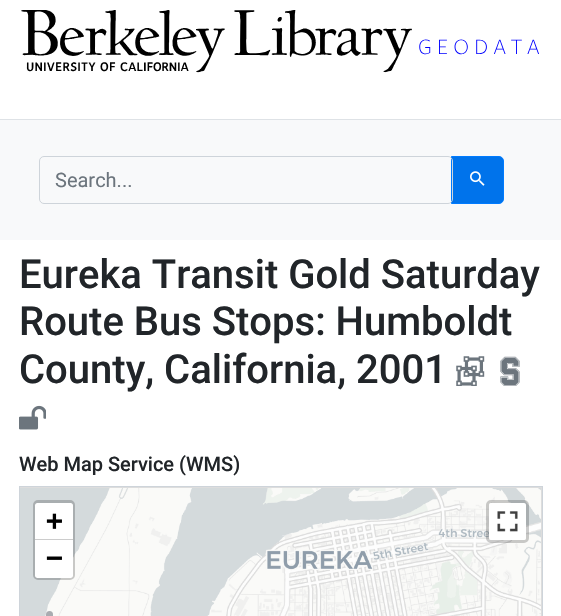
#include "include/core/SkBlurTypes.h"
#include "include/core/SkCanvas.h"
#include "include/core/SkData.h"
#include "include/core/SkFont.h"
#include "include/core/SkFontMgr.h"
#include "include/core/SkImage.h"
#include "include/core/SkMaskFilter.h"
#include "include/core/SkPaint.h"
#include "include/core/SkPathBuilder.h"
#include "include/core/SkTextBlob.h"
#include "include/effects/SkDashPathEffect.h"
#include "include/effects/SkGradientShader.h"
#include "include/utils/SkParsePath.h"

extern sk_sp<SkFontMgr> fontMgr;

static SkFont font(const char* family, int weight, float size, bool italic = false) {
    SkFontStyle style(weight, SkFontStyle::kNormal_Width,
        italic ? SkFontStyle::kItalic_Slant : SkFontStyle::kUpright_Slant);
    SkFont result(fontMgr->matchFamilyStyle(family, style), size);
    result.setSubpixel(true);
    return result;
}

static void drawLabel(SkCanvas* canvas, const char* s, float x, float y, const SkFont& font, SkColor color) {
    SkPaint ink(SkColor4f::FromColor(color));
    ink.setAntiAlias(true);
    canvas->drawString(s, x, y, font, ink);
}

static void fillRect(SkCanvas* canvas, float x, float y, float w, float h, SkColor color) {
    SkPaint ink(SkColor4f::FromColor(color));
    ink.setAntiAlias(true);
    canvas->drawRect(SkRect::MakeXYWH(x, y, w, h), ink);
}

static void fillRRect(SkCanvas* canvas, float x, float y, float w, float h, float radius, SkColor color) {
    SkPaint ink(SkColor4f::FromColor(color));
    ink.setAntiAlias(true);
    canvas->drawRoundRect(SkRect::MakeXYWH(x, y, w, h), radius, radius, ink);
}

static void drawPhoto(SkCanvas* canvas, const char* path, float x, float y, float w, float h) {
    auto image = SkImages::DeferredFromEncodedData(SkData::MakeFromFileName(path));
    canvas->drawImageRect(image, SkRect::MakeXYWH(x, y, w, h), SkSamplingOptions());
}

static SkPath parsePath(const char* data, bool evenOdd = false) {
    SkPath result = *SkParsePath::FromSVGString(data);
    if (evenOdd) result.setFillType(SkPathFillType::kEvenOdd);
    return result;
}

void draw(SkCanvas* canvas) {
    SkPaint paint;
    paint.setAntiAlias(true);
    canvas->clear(0xFFFFFFFF);
    fillRect(canvas, 0, 119, 561, 1, 0xFFDEE2E6);
    drawPhoto(canvas, "assets/img1.png", 21, 10, 518, 63);
    fillRect(canvas, 0, 120, 561, 120, 0xFFF8F9FA);
    paint.setColor(0xFF0073EB);
    canvas->drawPath(parsePath("M451.5 156.5H499C501.5 156.5 503.5 158.5 503.5 161V199C503.5 201.5 501.5 203.5 499 203.5H451.5Z"), paint);
    paint.setStroke(true);
    paint.setStrokeWidth(1);
    paint.setColor(0xFF007BFF);
    canvas->drawPath(parsePath("M451.5 156.5H499C501.5 156.5 503.5 158.5 503.5 161V199C503.5 201.5 501.5 203.5 499 203.5H451.5Z"), paint);
    paint.setColor(0xFFCED4DA);
    canvas->drawRoundRect(SkRect::MakeXYWH(39.5f, 156.5f, 413, 47), 4.5f, 4.5f, paint);
    SkFont font1 = font("Roboto", 400, 20);
    drawLabel(canvas, "Search...", 55, 187, font1, 0xFF6C757D);
    drawPhoto(canvas, "assets/img2.png", 470, 171, 15, 15);
    SkFont font2 = font("Roboto", 500, 40);
    drawLabel(canvas, "Eureka Transit Gold Saturday", 19, 288, font2, 0xFF212529);
    drawLabel(canvas, "Route Bus Stops: Humboldt", 19, 335, font2, 0xFF212529);
    drawLabel(canvas, "County, California, 2001", 19, 383, font2, 0xFF212529);
    drawPhoto(canvas, "assets/img3.png", 456, 356, 29, 30);
    drawPhoto(canvas, "assets/img4.png", 500, 356, 20, 30);
    drawPhoto(canvas, "assets/img5.png", 19, 405, 27, 25);
    SkFont font3 = font("Roboto", 500, 20);
    drawLabel(canvas, "Web Map Service (WMS)", 19, 471, font3, 0xFF212529);
    paint.setStroke(false);
    paint.setColor(0xFFDDDDDD);
    canvas->drawRect(SkRect::MakeXYWH(19.5f, 486.5f, 523, 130), paint);
    paint.setStroke(true);
    paint.setColor(0xFFCED4DA);
    canvas->drawRect(SkRect::MakeXYWH(19.5f, 486.5f, 523, 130), paint);
    drawPhoto(canvas, "assets/img6.png", 20, 488, 163, 128);
    drawPhoto(canvas, "assets/img7.png", 183, 488, 320, 128);
    drawPhoto(canvas, "assets/img8.png", 503, 488, 38, 128);
    paint.setStrokeWidth(3);
    paint.setColor(0x33000000);
    canvas->drawRoundRect(SkRect::MakeXYWH(34.5f, 501.5f, 39, 77), 3.5f, 3.5f, paint);
    paint.setStroke(false);
    paint.setColor(0xFFFFFFFF);
    canvas->drawPath(parsePath("M37.5 503H70.5C72 503 73 504 73 505.5V540H35V505.5C35 504 36 503 37.5 503Z"), paint);
    fillRect(canvas, 35, 539, 38, 1, 0xFFCCCCCC);
    SkFont font4 = font("DejaVu Sans Mono", 700, 28);
    drawLabel(canvas, "+", 46, 530, font4, 0xFF000000);
    canvas->drawPath(parsePath("M35 540H73V575.5C73 577 72 578 70.5 578H37.5C36 578 35 577 35 575.5Z"), paint);
    drawLabel(canvas, "−", 46, 567, font4, 0xFF000000);
    fillRRect(canvas, 46, 611, 7, 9, 3.5f, 0xFFA9ACB1);
    paint.setStroke(true);
    paint.setColor(0x33000000);
    canvas->drawRoundRect(SkRect::MakeXYWH(487.5f, 501.5f, 40, 40), 3.5f, 3.5f, paint);
    fillRRect(canvas, 489, 503, 37, 37, 2.5f, 0xFFFFFFFF);
    drawPhoto(canvas, "assets/img9.png", 497, 511, 21, 21);
}
